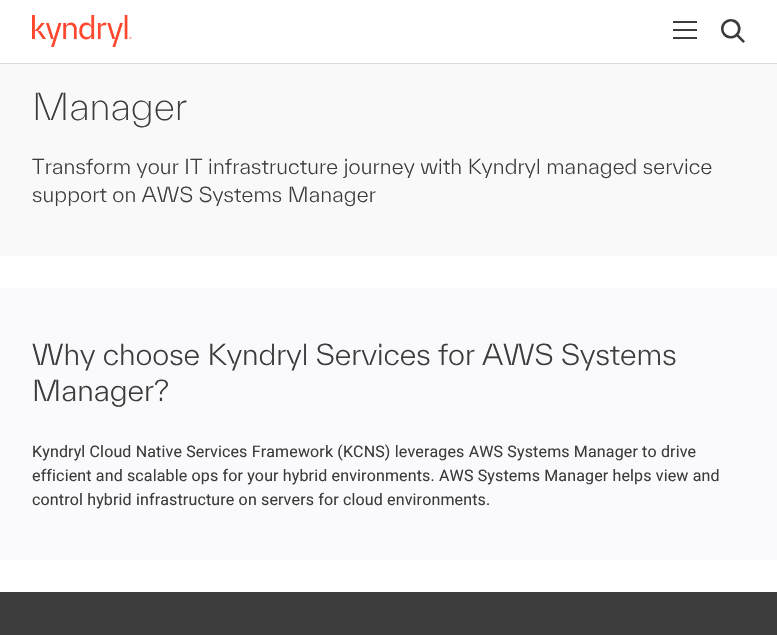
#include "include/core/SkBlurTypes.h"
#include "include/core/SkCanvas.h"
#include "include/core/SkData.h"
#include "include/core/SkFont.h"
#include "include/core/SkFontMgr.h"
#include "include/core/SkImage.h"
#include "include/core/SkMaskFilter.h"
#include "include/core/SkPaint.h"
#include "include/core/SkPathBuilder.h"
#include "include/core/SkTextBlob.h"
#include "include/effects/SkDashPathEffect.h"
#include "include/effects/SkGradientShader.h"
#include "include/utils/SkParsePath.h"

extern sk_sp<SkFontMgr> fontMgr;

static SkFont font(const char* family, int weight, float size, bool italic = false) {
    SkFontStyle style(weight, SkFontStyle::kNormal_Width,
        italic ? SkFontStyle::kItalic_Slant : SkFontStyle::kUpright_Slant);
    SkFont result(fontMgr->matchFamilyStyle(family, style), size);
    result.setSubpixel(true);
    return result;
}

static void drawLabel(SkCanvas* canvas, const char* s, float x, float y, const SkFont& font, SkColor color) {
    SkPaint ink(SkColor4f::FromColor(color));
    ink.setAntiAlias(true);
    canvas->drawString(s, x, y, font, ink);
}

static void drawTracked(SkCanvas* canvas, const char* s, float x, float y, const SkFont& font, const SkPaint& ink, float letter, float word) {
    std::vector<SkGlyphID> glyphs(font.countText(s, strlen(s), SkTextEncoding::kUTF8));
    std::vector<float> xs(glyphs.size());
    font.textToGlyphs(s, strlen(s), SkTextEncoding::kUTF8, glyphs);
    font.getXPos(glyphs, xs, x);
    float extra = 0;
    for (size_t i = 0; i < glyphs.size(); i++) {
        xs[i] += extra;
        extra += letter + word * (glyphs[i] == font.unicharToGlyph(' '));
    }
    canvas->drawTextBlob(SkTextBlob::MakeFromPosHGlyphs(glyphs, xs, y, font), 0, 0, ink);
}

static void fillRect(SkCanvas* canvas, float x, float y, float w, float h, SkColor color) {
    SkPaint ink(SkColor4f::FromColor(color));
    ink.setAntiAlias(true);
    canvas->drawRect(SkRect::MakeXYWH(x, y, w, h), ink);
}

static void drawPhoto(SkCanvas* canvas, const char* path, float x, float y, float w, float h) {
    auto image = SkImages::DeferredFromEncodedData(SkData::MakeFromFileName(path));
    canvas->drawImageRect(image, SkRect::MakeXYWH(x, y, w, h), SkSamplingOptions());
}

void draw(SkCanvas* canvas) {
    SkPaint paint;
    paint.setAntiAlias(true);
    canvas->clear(0xFFFFFFFF);
    fillRect(canvas, 0, 63, 777, 1, 0xFFDCDAD8);
    drawPhoto(canvas, "assets/img1.png", 32, 15, 100, 32);
    drawPhoto(canvas, "assets/img2.png", 673, 21, 24, 18);
    drawPhoto(canvas, "assets/img3.png", 721, 19, 24, 24);
    fillRect(canvas, 0, 64, 777, 192, 0xFFF9F9F9);
    SkFont font1 = font("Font", 200, 36);
    drawLabel(canvas, "Manager", 32, 120, font1, 0xFF3D3C3C);
    SkFont font2 = font("Font", 300, 20);
    paint.setColor(0xFF3D3C3C);
    drawTracked(canvas, "Transform your IT infrastructure journey with Kyndryl managed service", 32, 174, font2, paint, 0.15f, 0);
    drawTracked(canvas, "support on AWS Systems Manager", 32, 202, font2, paint, 0.15f, 0);
    fillRect(canvas, 0, 288, 777, 272, 0xFFFAFAFC);
    SkFont font3 = font("Font", 300, 28);
    drawLabel(canvas, "Why choose Kyndryl Services for AWS Systems", 32, 365, font3, 0xFF3D3C3C);
    drawLabel(canvas, "Manager?", 32, 401, font3, 0xFF3D3C3C);
    SkFont font4 = font("Roboto", 400, 16);
    drawTracked(canvas, "Kyndryl Cloud Native Services Framework (KCNS) leverages AWS Systems Manager to drive", 32, 457, font4, paint, 0.15f, 0);
    drawTracked(canvas, "efficient and scalable ops for your hybrid environments. AWS Systems Manager helps view and", 32, 481, font4, paint, 0.15f, 0);
    drawTracked(canvas, "control hybrid infrastructure on servers for cloud environments.", 32, 505, font4, paint, 0.15f, 0);
    fillRect(canvas, 0, 592, 777, 43, 0xFF3D3C3C);
}
